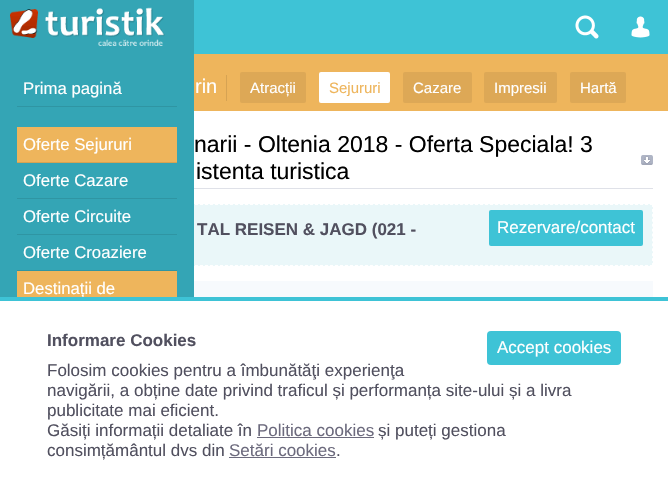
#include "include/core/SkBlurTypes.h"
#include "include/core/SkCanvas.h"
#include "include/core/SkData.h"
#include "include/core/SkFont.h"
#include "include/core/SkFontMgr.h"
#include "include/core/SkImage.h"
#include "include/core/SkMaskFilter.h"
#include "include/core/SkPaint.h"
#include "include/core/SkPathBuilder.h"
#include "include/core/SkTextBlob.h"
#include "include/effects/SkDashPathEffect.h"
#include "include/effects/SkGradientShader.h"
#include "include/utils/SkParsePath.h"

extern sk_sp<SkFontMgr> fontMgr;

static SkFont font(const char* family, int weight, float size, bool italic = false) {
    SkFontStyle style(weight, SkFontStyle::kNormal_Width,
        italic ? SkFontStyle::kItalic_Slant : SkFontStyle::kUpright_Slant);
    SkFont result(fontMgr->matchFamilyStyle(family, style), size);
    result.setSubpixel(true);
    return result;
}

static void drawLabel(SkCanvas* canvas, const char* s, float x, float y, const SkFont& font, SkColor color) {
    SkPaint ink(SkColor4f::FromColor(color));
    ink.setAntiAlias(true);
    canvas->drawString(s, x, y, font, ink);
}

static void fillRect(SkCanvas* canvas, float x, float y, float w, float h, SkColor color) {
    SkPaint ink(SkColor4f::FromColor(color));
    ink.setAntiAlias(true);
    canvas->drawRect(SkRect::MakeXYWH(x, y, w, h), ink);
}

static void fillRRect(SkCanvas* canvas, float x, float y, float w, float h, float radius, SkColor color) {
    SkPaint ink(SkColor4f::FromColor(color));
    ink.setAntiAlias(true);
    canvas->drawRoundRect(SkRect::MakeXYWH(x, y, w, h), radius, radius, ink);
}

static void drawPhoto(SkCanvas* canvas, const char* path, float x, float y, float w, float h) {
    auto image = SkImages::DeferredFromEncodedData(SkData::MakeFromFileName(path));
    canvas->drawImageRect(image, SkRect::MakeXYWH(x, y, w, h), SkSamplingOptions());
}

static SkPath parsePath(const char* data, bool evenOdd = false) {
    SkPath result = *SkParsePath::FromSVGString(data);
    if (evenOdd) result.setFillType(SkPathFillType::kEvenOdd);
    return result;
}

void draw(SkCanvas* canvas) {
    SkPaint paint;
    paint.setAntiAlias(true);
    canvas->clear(0xFFFFFFFF);
    fillRect(canvas, 194, 0, 474, 54, 0xFF3EC3D6);
    drawPhoto(canvas, "assets/img1.png", 575, 15, 24, 24);
    drawPhoto(canvas, "assets/img2.png", 631, 16, 19, 22);
    fillRect(canvas, 194, 204, 459, 62, 0xFFEAF7F9);
    paint.setStroke(true);
    paint.setStrokeWidth(1);
    paint.setColor(0xFFFFFFFF);
    paint.setPathEffect(SkDashPathEffect::Make({{3, 2}}, 0));
    canvas->drawPath(parsePath("M15 204.5H653"), paint);
    paint.setPathEffect(nullptr);
    paint.setPathEffect(SkDashPathEffect::Make({{3, 1.92f}}, 0));
    canvas->drawPath(parsePath("M652.5 204V266"), paint);
    paint.setPathEffect(nullptr);
    paint.setPathEffect(SkDashPathEffect::Make({{3, 2}}, 0));
    canvas->drawPath(parsePath("M15 265.5H653"), paint);
    paint.setPathEffect(nullptr);
    fillRect(canvas, 0, 0, 194, 297, 0xFF34A5B5);
    drawPhoto(canvas, "assets/img3.png", 10, 7, 155, 39);
    fillRect(canvas, 17, 106, 160, 1, 0xFF2F95A3);
    SkFont font1 = font("Liberation Sans", 400, 16.75f);
    drawLabel(canvas, "Prima pagină", 23, 94, font1, 0xFFFFFFFF);
    fillRect(canvas, 17, 127, 160, 35, 0xFFEEB55C);
    fillRect(canvas, 17, 162, 160, 1, 0xFFD6A353);
    drawLabel(canvas, "Oferte Sejururi", 23, 150, font1, 0xFFFFFFFF);
    fillRect(canvas, 17, 198, 160, 1, 0xFF2F95A3);
    drawLabel(canvas, "Oferte Cazare", 23, 186, font1, 0xFFFFFFFF);
    fillRect(canvas, 17, 234, 160, 1, 0xFF2F95A3);
    drawLabel(canvas, "Oferte Circuite", 23, 222, font1, 0xFFFFFFFF);
    fillRect(canvas, 17, 270, 160, 1, 0xFF2F95A3);
    drawLabel(canvas, "Oferte Croaziere", 23, 258, font1, 0xFFFFFFFF);
    fillRect(canvas, 17, 271, 160, 26, 0xFFEEB55C);
    drawLabel(canvas, "Destinații de", 23, 294, font1, 0xFFFFFFFF);
    fillRect(canvas, 194, 54, 474, 57, 0xFFEEB55C);
    fillRect(canvas, 226, 75, 1, 26, 0xFFD6A353);
    SkFont font2 = font("Liberation Sans", 400, 20);
    drawLabel(canvas, "rin", 195, 93, font2, 0xFFFFFFFF);
    fillRRect(canvas, 240, 72, 66, 31, 2, 0xFFDDA856);
    SkFont font3 = font("Liberation Sans", 400, 15);
    drawLabel(canvas, "Atracții", 250, 93, font3, 0xFFFFFFFF);
    fillRRect(canvas, 319, 72, 71, 31, 2, 0xFFFFFFFF);
    drawLabel(canvas, "Sejururi", 329, 93, font3, 0xFFEEB55C);
    fillRRect(canvas, 403, 72, 69, 31, 2, 0xFFDDA856);
    drawLabel(canvas, "Cazare", 413, 93, font3, 0xFFFFFFFF);
    fillRRect(canvas, 484, 72, 73, 31, 2, 0xFFDDA856);
    drawLabel(canvas, "Impresii", 494, 93, font3, 0xFFFFFFFF);
    fillRRect(canvas, 570, 72, 56, 31, 2, 0xFFDDA856);
    drawLabel(canvas, "Hartă", 580, 93, font3, 0xFFFFFFFF);
    drawPhoto(canvas, "assets/img4.png", 641, 155, 12, 10);
    fillRect(canvas, 194, 188, 459, 1, 0xFFDFE1E8);
    SkFont font4 = font("Liberation Sans", 400, 23);
    drawLabel(canvas, "narii - Oltenia 2018 - Oferta Speciala! 3", 194, 152, font4, 0xFF000000);
    drawLabel(canvas, "istenta turistica", 196, 179, font4, 0xFF000000);
    SkFont font5 = font("Liberation Sans", 700, 17);
    drawLabel(canvas, "TAL REISEN & JAGD (021 -", 197, 235, font5, 0xFF51505F);
    fillRRect(canvas, 489, 210, 154, 36, 2, 0xFF3EC3D6);
    SkFont font6 = font("Liberation Sans", 400, 17);
    drawLabel(canvas, "Rezervare/contact", 497, 233, font6, 0xFFFFFFFF);
    fillRect(canvas, 194, 281, 459, 16, 0xFFF7FAFD);
    fillRect(canvas, 0, 297, 668, 4, 0xFF3EC3D6);
    drawLabel(canvas, "Informare Cookies", 47, 346, font5, 0xFF51505F);
    fillRRect(canvas, 487, 331, 134, 34, 4, 0xFF3EC3D6);
    drawLabel(canvas, "Accept cookies", 497, 353, font6, 0xFFFFFFFF);
    drawLabel(canvas, "Folosim cookies pentru a îmbunătăţi experienţa", 47, 376, font6, 0xFF51505F);
    drawLabel(canvas, "navigării, a obține date privind traficul și performanța site-ului și a livra", 47, 396, font6, 0xFF51505F);
    drawLabel(canvas, "publicitate mai eficient.", 47, 416, font6, 0xFF51505F);
    drawLabel(canvas, "Găsiți informații detaliate în", 47, 436, font6, 0xFF51505F);
    drawLabel(canvas, "Politica cookies", 257, 436, font6, 0xFF6C6A7D);
    fillRect(canvas, 257, 437, 117, 1, 0xFF6C6A7D);
    drawLabel(canvas, "și puteți gestiona", 378, 436, font6, 0xFF51505F);
    drawLabel(canvas, "consimțământul dvs din", 47, 456, font6, 0xFF51505F);
    drawLabel(canvas, "Setări cookies", 229, 456, font6, 0xFF6C6A7D);
    fillRect(canvas, 229, 457, 107, 1, 0xFF6C6A7D);
    drawLabel(canvas, ".", 336, 456, font6, 0xFF51505F);
}
